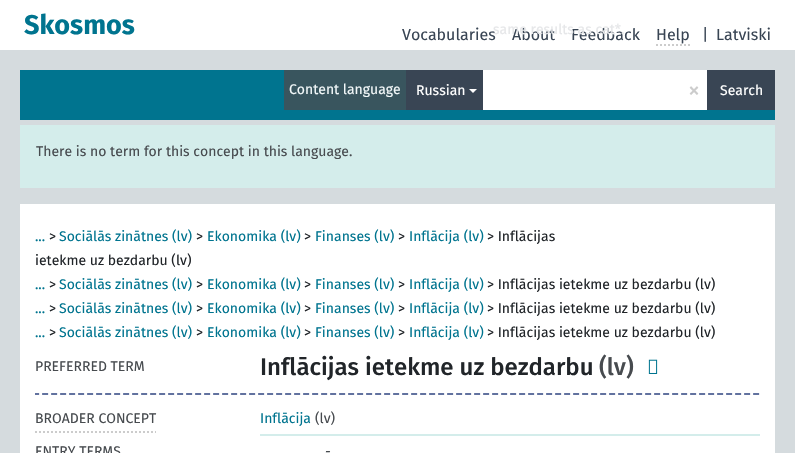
#include "include/core/SkBlurTypes.h"
#include "include/core/SkCanvas.h"
#include "include/core/SkData.h"
#include "include/core/SkFont.h"
#include "include/core/SkFontMgr.h"
#include "include/core/SkImage.h"
#include "include/core/SkMaskFilter.h"
#include "include/core/SkPaint.h"
#include "include/core/SkPathBuilder.h"
#include "include/core/SkTextBlob.h"
#include "include/effects/SkDashPathEffect.h"
#include "include/effects/SkGradientShader.h"
#include "include/utils/SkParsePath.h"

extern sk_sp<SkFontMgr> fontMgr;

static SkFont font(const char* family, int weight, float size, bool italic = false) {
    SkFontStyle style(weight, SkFontStyle::kNormal_Width,
        italic ? SkFontStyle::kItalic_Slant : SkFontStyle::kUpright_Slant);
    SkFont result(fontMgr->matchFamilyStyle(family, style), size);
    result.setSubpixel(true);
    return result;
}

static void drawLabel(SkCanvas* canvas, const char* s, float x, float y, const SkFont& font, SkColor color) {
    SkPaint ink(SkColor4f::FromColor(color));
    ink.setAntiAlias(true);
    canvas->drawString(s, x, y, font, ink);
}

static void fillRect(SkCanvas* canvas, float x, float y, float w, float h, SkColor color) {
    SkPaint ink(SkColor4f::FromColor(color));
    ink.setAntiAlias(true);
    canvas->drawRect(SkRect::MakeXYWH(x, y, w, h), ink);
}

static void drawPhoto(SkCanvas* canvas, const char* path, float x, float y, float w, float h) {
    auto image = SkImages::DeferredFromEncodedData(SkData::MakeFromFileName(path));
    canvas->drawImageRect(image, SkRect::MakeXYWH(x, y, w, h), SkSamplingOptions());
}

static SkPath parsePath(const char* data, bool evenOdd = false) {
    SkPath result = *SkParsePath::FromSVGString(data);
    if (evenOdd) result.setFillType(SkPathFillType::kEvenOdd);
    return result;
}

void draw(SkCanvas* canvas) {
    SkPaint paint;
    paint.setAntiAlias(true);
    canvas->clear(0xFFD5DBDE);
    fillRect(canvas, 0, 0, 795, 50, 0xFFFFFFFF);
    SkFont font1 = font("Fira Sans", 700, 27);
    drawLabel(canvas, "Skosmos", 24, 34, font1, 0xFF00748F);
    SkFont font2 = font("Fira Sans", 400, 16);
    drawLabel(canvas, "Vocabularies", 402, 40, font2, 0xFF394554);
    drawLabel(canvas, "About", 512, 40, font2, 0xFF394554);
    drawLabel(canvas, "Feedback", 571, 40, font2, 0xFF394554);
    SkFont font3 = font("Fira Sans", 400, 14);
    drawLabel(canvas, "same results as cat*.", 493, 34, font3, 0xFFE6E7E9);
    drawLabel(canvas, "Help", 656, 40, font2, 0xFF394554);
    paint.setStroke(true);
    paint.setStrokeWidth(2);
    paint.setColor(0xFFCCCCCC);
    paint.setPathEffect(SkDashPathEffect::Make({{2, 2}}, 0));
    canvas->drawPath(parsePath("M656 45H690"), paint);
    paint.setPathEffect(nullptr);
    drawLabel(canvas, "|", 702, 40, font2, 0xFF394554);
    drawLabel(canvas, "Latviski", 716, 40, font2, 0xFF394554);
    fillRect(canvas, 20, 70, 755, 50, 0xFF00748F);
    fillRect(canvas, 284, 70, 122, 40, 0xFF39555E);
    drawLabel(canvas, "Content language", 289, 94, font3, 0xFFF2F8F9);
    fillRect(canvas, 406, 70, 77, 40, 0xFF394554);
    drawLabel(canvas, "Russian", 416, 95, font3, 0xFFFFFFFF);
    paint.setStroke(false);
    paint.setColor(0xFFFFFFFF);
    canvas->drawPath(parsePath("M469 89H477L473 93Z"), paint);
    fillRect(canvas, 483, 70, 224, 40, 0xFFFFFFFF);
    SkFont font4 = font("Fira Sans", 400, 24);
    drawLabel(canvas, "×", 688, 98, font4, 0xFFCCCCCC);
    fillRect(canvas, 707, 70, 68, 40, 0xFF394554);
    drawLabel(canvas, "Search", 720, 95, font3, 0xFFFFFFFF);
    fillRect(canvas, 20, 125, 755, 63, 0xFFD4EDEB);
    drawLabel(canvas, "There is no term for this concept in this language.", 36, 156, font3, 0xFF474B4F);
    fillRect(canvas, 20, 204, 755, 249, 0xFFFFFFFF);
    drawLabel(canvas, ">", 49, 241, font3, 0xFF212529);
    drawLabel(canvas, "Sociālās zinātnes (lv)", 59, 241, font3, 0xFF00748F);
    drawLabel(canvas, ">", 196, 241, font3, 0xFF212529);
    drawLabel(canvas, "Ekonomika (lv)", 207, 241, font3, 0xFF00748F);
    drawLabel(canvas, ">", 304, 241, font3, 0xFF212529);
    drawLabel(canvas, "Finanses (lv)", 315, 241, font3, 0xFF00748F);
    drawLabel(canvas, ">", 398, 241, font3, 0xFF212529);
    drawLabel(canvas, "Inflācija (lv)", 409, 241, font3, 0xFF00748F);
    drawLabel(canvas, "> Inflācijas", 487, 241, font3, 0xFF212529);
    drawLabel(canvas, "...", 35, 241, font3, 0xFF00748F);
    drawLabel(canvas, "ietekme uz bezdarbu (lv)", 35, 265, font3, 0xFF212529);
    drawLabel(canvas, ">", 49, 289, font3, 0xFF212529);
    drawLabel(canvas, "Sociālās zinātnes (lv)", 59, 289, font3, 0xFF00748F);
    drawLabel(canvas, ">", 196, 289, font3, 0xFF212529);
    drawLabel(canvas, "Ekonomika (lv)", 207, 289, font3, 0xFF00748F);
    drawLabel(canvas, ">", 304, 289, font3, 0xFF212529);
    drawLabel(canvas, "Finanses (lv)", 315, 289, font3, 0xFF00748F);
    drawLabel(canvas, ">", 398, 289, font3, 0xFF212529);
    drawLabel(canvas, "Inflācija (lv)", 409, 289, font3, 0xFF00748F);
    drawLabel(canvas, "> Inflācijas ietekme uz bezdarbu (lv)", 487, 289, font3, 0xFF212529);
    drawLabel(canvas, "...", 35, 289, font3, 0xFF00748F);
    drawLabel(canvas, ">", 49, 313, font3, 0xFF212529);
    drawLabel(canvas, "Sociālās zinātnes (lv)", 59, 313, font3, 0xFF00748F);
    drawLabel(canvas, ">", 196, 313, font3, 0xFF212529);
    drawLabel(canvas, "Ekonomika (lv)", 207, 313, font3, 0xFF00748F);
    drawLabel(canvas, ">", 304, 313, font3, 0xFF212529);
    drawLabel(canvas, "Finanses (lv)", 315, 313, font3, 0xFF00748F);
    drawLabel(canvas, ">", 398, 313, font3, 0xFF212529);
    drawLabel(canvas, "Inflācija (lv)", 409, 313, font3, 0xFF00748F);
    drawLabel(canvas, "> Inflācijas ietekme uz bezdarbu (lv)", 487, 313, font3, 0xFF212529);
    drawLabel(canvas, "...", 35, 313, font3, 0xFF00748F);
    drawLabel(canvas, ">", 49, 337, font3, 0xFF212529);
    drawLabel(canvas, "Sociālās zinātnes (lv)", 59, 337, font3, 0xFF00748F);
    drawLabel(canvas, ">", 196, 337, font3, 0xFF212529);
    drawLabel(canvas, "Ekonomika (lv)", 207, 337, font3, 0xFF00748F);
    drawLabel(canvas, ">", 304, 337, font3, 0xFF212529);
    drawLabel(canvas, "Finanses (lv)", 315, 337, font3, 0xFF00748F);
    drawLabel(canvas, ">", 398, 337, font3, 0xFF212529);
    drawLabel(canvas, "Inflācija (lv)", 409, 337, font3, 0xFF00748F);
    drawLabel(canvas, "> Inflācijas ietekme uz bezdarbu (lv)", 487, 337, font3, 0xFF212529);
    drawLabel(canvas, "...", 35, 337, font3, 0xFF00748F);
    drawLabel(canvas, "PREFERRED TERM", 35, 371, font3, 0xFF474B4F);
    SkFont font5 = font("Fira Sans", 500, 24);
    drawLabel(canvas, "Inflācijas ietekme uz bezdarbu", 260, 375, font5, 0xFF212529);
    drawLabel(canvas, "(lv)", 599, 375, font5, 0xFF474B4F);
    drawPhoto(canvas, "assets/img1.png", 648, 359, 10, 15);
    drawPhoto(canvas, "assets/img2.png", 35, 393, 725, 2);
    paint.setStroke(true);
    paint.setColor(0xFFCCCCCC);
    paint.setPathEffect(SkDashPathEffect::Make({{2, 2}}, 0));
    canvas->drawPath(parsePath("M35 432H156"), paint);
    paint.setPathEffect(nullptr);
    drawLabel(canvas, "BROADER CONCEPT", 35, 423, font3, 0xFF474B4F);
    fillRect(canvas, 260, 434, 500, 2, 0xFFD4EDEB);
    drawLabel(canvas, "Inflācija", 260, 423, font3, 0xFF00748F);
    drawLabel(canvas, "(lv)", 315, 423, font3, 0xFF474B4F);
    drawLabel(canvas, "ENTRY TERMS", 35, 456, font3, 0xFF474B4F);
    SkFont font6 = font("Fira Sans", 400, 14, true);
    drawLabel(canvas, "-", 324, 456, font6, 0xFF474B4F);
}
